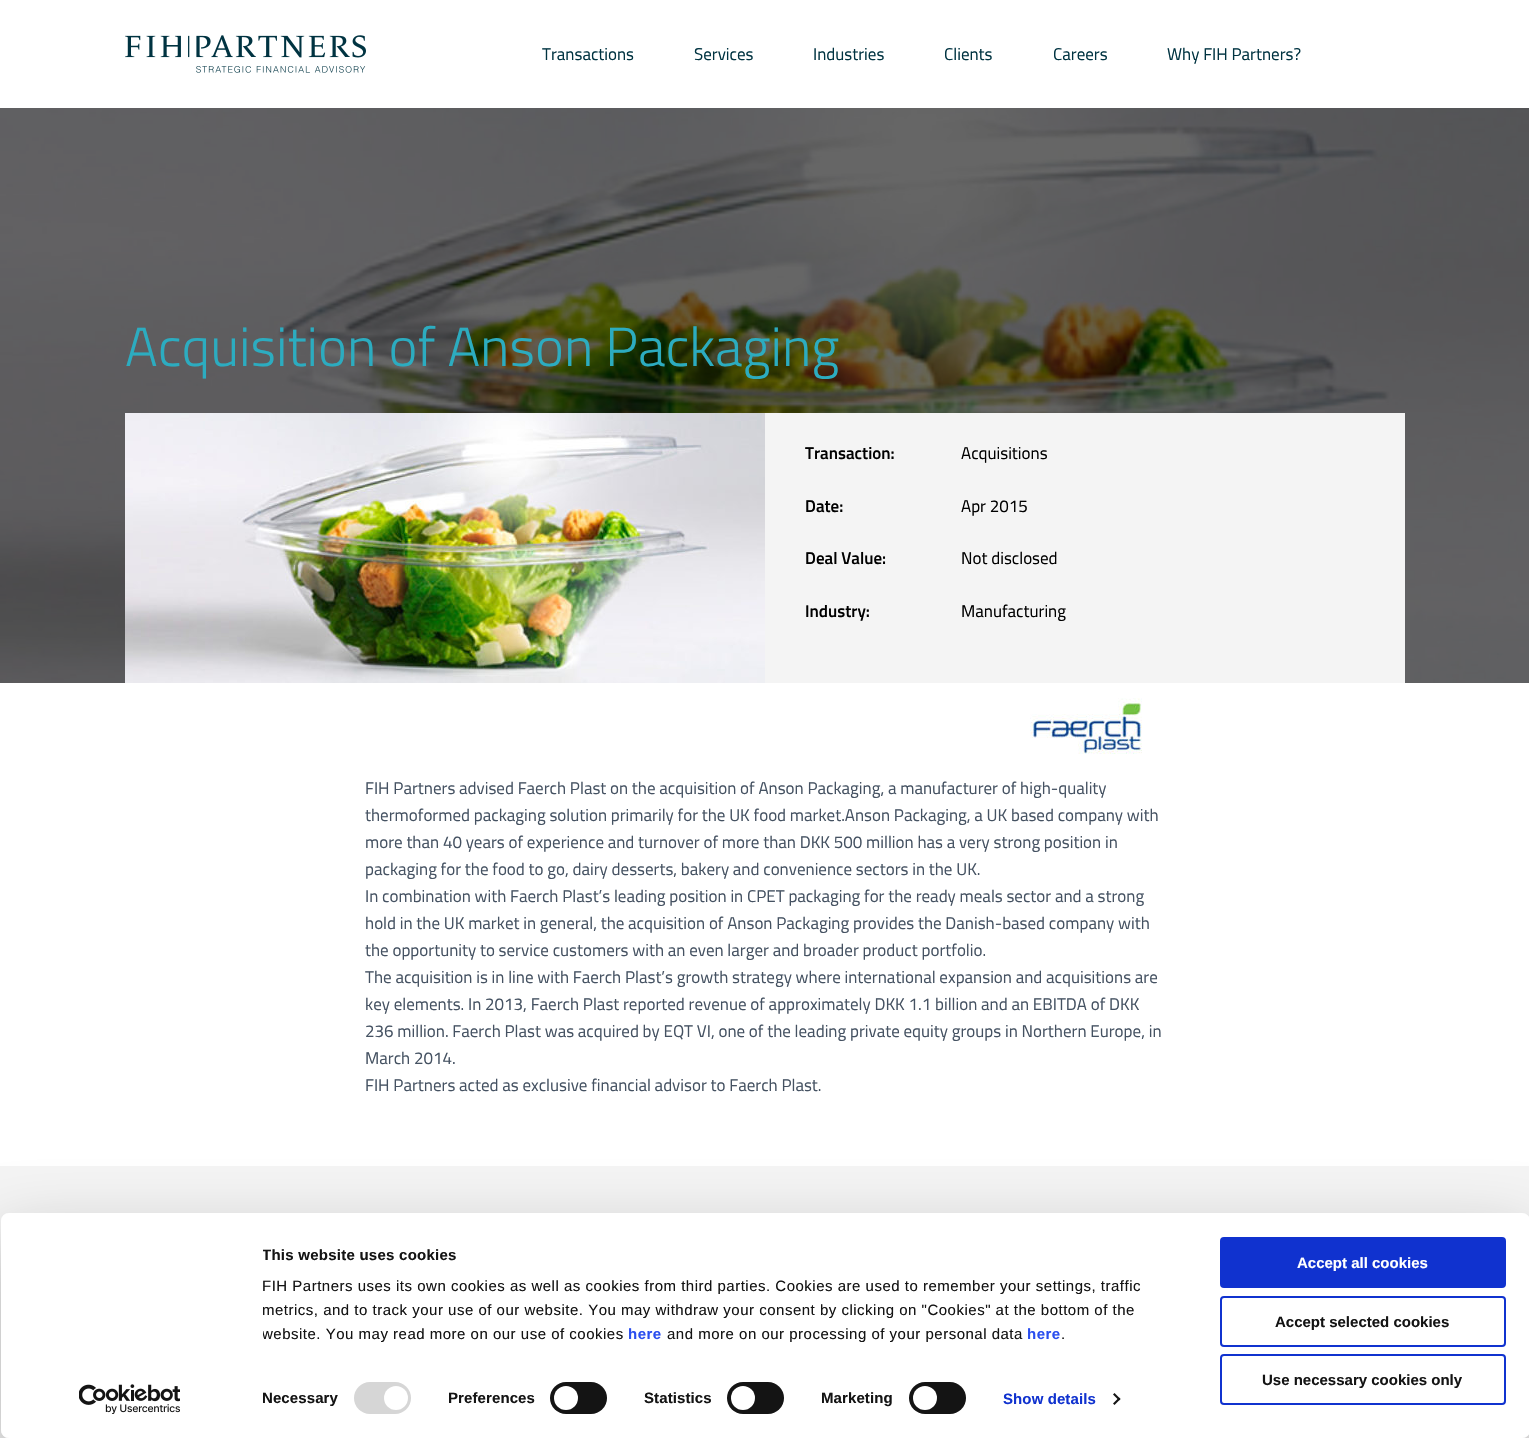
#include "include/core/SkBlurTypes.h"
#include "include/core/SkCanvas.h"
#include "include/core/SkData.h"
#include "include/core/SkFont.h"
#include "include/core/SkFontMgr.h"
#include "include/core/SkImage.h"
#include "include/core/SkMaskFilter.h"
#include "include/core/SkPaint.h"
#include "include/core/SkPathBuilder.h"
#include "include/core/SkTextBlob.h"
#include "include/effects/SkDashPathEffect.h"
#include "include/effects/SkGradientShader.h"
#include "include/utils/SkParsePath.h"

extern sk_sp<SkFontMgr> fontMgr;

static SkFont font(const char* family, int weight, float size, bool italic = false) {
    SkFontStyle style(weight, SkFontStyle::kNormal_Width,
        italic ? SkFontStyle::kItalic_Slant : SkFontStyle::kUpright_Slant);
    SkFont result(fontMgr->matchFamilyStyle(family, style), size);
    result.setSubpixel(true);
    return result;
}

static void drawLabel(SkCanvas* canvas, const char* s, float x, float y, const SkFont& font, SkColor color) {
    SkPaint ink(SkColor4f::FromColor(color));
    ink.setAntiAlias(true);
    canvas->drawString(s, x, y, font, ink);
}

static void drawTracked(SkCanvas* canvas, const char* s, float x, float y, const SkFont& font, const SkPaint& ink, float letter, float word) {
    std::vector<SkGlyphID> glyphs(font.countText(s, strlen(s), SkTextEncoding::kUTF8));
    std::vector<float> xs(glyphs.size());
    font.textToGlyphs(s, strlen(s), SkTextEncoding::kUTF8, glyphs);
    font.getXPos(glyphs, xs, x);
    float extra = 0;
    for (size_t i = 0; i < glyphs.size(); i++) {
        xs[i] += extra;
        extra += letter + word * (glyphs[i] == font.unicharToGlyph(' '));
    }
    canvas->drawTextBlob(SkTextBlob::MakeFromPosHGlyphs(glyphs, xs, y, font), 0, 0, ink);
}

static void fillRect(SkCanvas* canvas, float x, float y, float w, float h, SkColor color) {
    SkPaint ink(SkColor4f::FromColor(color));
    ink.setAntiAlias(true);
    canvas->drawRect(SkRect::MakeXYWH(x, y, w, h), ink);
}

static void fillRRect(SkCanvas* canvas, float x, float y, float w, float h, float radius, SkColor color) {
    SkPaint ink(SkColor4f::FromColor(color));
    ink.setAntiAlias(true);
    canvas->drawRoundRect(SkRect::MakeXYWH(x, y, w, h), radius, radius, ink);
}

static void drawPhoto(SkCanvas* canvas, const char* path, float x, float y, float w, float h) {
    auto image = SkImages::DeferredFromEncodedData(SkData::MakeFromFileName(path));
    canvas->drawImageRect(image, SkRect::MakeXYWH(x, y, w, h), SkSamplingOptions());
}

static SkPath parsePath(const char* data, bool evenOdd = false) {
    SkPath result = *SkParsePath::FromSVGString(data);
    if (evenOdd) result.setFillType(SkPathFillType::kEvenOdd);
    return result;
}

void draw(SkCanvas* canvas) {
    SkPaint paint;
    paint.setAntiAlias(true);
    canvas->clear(0xFFFFFFFF);
    drawPhoto(canvas, "assets/img1.png", 125, 35, 241, 38);
    SkFont font1 = font("Titillium Web", 400, 17);
    drawLabel(canvas, "Transactions", 542, 60, font1, 0xFF003341);
    drawLabel(canvas, "Services", 694, 60, font1, 0xFF003341);
    drawLabel(canvas, "Industries", 813, 60, font1, 0xFF003341);
    drawLabel(canvas, "Clients", 944, 60, font1, 0xFF003341);
    drawLabel(canvas, "Careers", 1053, 60, font1, 0xFF003341);
    drawLabel(canvas, "Why FIH Partners?", 1167, 60, font1, 0xFF003341);
    drawPhoto(canvas, "assets/img2.png", 0, 108, 1529, 575);
    SkFont font2 = font("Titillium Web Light", 300, 55);
    drawLabel(canvas, "Acquisition of Anson Packaging", 125, 366, font2, 0xFF2CACC0);
    drawPhoto(canvas, "assets/img3.png", 125, 413, 640, 270);
    fillRect(canvas, 765, 413, 640, 270, 0xFFF4F4F4);
    SkFont font3 = font("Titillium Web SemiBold", 600, 17);
    drawLabel(canvas, "Transaction:", 805, 459, font3, 0xFF000000);
    drawLabel(canvas, "Acquisitions", 961, 459, font1, 0xFF000000);
    drawLabel(canvas, "Date:", 805, 512, font3, 0xFF000000);
    drawLabel(canvas, "Apr 2015", 961, 512, font1, 0xFF000000);
    drawLabel(canvas, "Deal Value:", 805, 564, font3, 0xFF000000);
    drawLabel(canvas, "Not disclosed", 961, 564, font1, 0xFF000000);
    drawLabel(canvas, "Industry:", 805, 617, font3, 0xFF000000);
    drawLabel(canvas, "Manufacturing", 961, 617, font1, 0xFF000000);
    drawPhoto(canvas, "assets/img4.png", 1030, 698, 112, 56);
    drawLabel(canvas, "FIH Partners advised Faerch Plast on the acquisition of Anson Packaging, a manufacturer of high-quality", 365, 794, font1, 0xFF455262);
    drawLabel(canvas, "thermoformed packaging solution primarily for the UK food market.Anson Packaging, a UK based company with", 365, 821, font1, 0xFF455262);
    drawLabel(canvas, "more than 40 years of experience and turnover of more than DKK 500 million has a very strong position in", 365, 848, font1, 0xFF455262);
    drawLabel(canvas, "packaging for the food to go, dairy desserts, bakery and convenience sectors in the UK.", 365, 875, font1, 0xFF455262);
    drawLabel(canvas, "In combination with Faerch Plast’s leading position in CPET packaging for the ready meals sector and a strong", 365, 902, font1, 0xFF455262);
    drawLabel(canvas, "hold in the UK market in general, the acquisition of Anson Packaging provides the Danish-based company with", 365, 929, font1, 0xFF455262);
    drawLabel(canvas, "the opportunity to service customers with an even larger and broader product portfolio.", 365, 956, font1, 0xFF455262);
    drawLabel(canvas, "The acquisition is in line with Faerch Plast’s growth strategy where international expansion and acquisitions are", 365, 983, font1, 0xFF455262);
    drawLabel(canvas, "key elements. In 2013, Faerch Plast reported revenue of approximately DKK 1.1 billion and an EBITDA of DKK", 365, 1010, font1, 0xFF455262);
    drawLabel(canvas, "236 million. Faerch Plast was acquired by EQT VI, one of the leading private equity groups in Northern Europe, in", 365, 1037, font1, 0xFF455262);
    drawLabel(canvas, "March 2014.", 365, 1064, font1, 0xFF455262);
    drawLabel(canvas, "FIH Partners acted as exclusive financial advisor to Faerch Plast.", 365, 1091, font1, 0xFF455262);
    fillRect(canvas, 0, 1166, 1529, 272, 0xFFF4F4F4);
    canvas->save();
    canvas->clipPath(parsePath("M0 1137H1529V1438H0ZM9 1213H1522C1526.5 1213 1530 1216.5 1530 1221V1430C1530 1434.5 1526.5 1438 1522 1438H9C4.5 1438 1 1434.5 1 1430V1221C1 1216.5 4.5 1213 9 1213Z", true), true);
    paint.setColor(0x4D000000);
    paint.setMaskFilter(SkMaskFilter::MakeBlur(kNormal_SkBlurStyle, 35));
    canvas->drawRoundRect(SkRect::MakeXYWH(1, 1243, 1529, 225), 8, 8, paint);
    paint.setMaskFilter(nullptr);
    canvas->restore();
    fillRRect(canvas, 1, 1213, 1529, 225, 8, 0xFFFFFFFF);
    canvas->save();
    canvas->clipRect(SkRect::MakeXYWH(263, 1243, 928, 103));
    SkFont font4 = font("Liberation Sans", 700, 15);
    paint.setColor(0xFF141414);
    drawTracked(canvas, "This website uses cookies", 262, 1260, font4, paint, 0.25f, 0);
    canvas->restore();
    SkFont font5 = font("Liberation Sans", 400, 15);
    drawTracked(canvas, "FIH Partners uses its own cookies as well as cookies from third parties. Cookies are used to remember your settings, traffic", 262, 1291, font5, paint, 0.5f, 0);
    drawTracked(canvas, "metrics, and to track your use of our website. You may withdraw your consent by clicking on \"Cookies\" at the bottom of the", 262, 1315, font5, paint, 0.5f, 0);
    canvas->save();
    canvas->clipRect(SkRect::MakeXYWH(263, 1243, 928, 103));
    drawTracked(canvas, "website. You may read more on our use of cookies", 262, 1339, font5, paint, 0.5f, 0);
    canvas->restore();
    paint.setColor(0xFF2A4EEF);
    drawTracked(canvas, "here", 628, 1339, font4, paint, 0.5f, 0);
    paint.setColor(0xFF141414);
    drawTracked(canvas, "and more on our processing of your personal data", 667, 1339, font5, paint, 0.5f, 0);
    paint.setColor(0xFF2A4EEF);
    drawTracked(canvas, "here", 1027, 1339, font4, paint, 0.5f, 0);
    paint.setColor(0xFF141414);
    drawTracked(canvas, ".", 1061, 1339, font5, paint, 0.5f, 0);
    drawTracked(canvas, "Necessary", 262, 1403, font4, paint, 0.1f, 0);
    fillRRect(canvas, 354, 1382, 57, 32, 16, 0xFFD6D6D6);
    paint.setColor(0xFFFFFFFF);
    canvas->drawCircle(396, 1398, 12, paint);
    paint.setColor(0xFF141414);
    drawTracked(canvas, "Preferences", 448, 1403, font4, paint, 0.1f, 0);
    fillRRect(canvas, 550, 1382, 57, 32, 16, 0xFF141414);
    paint.setColor(0xFFFFFFFF);
    canvas->drawCircle(566, 1398, 12, paint);
    paint.setColor(0xFF141414);
    drawTracked(canvas, "Statistics", 644, 1403, font4, paint, 0.1f, 0);
    fillRRect(canvas, 727, 1382, 57, 32, 16, 0xFF141414);
    paint.setColor(0xFFFFFFFF);
    canvas->drawCircle(743, 1398, 12, paint);
    paint.setColor(0xFF141414);
    drawTracked(canvas, "Marketing", 821, 1403, font4, paint, 0.1f, 0);
    fillRRect(canvas, 909, 1382, 57, 32, 16, 0xFF141414);
    paint.setColor(0xFFFFFFFF);
    canvas->drawCircle(925, 1398, 12, paint);
    paint.setColor(0xFF1032CF);
    drawTracked(canvas, "Show details", 1003, 1404, font4, paint, 0.1f, 0);
    paint.setColor(0xFF141414);
    canvas->drawPath(parsePath("M1114.5 1393L1120.5 1399L1119 1400.5L1113 1394.5Z"), paint);
    canvas->drawPath(parsePath("M1119 1397.5L1120.5 1399L1114.5 1405L1113 1403.5Z"), paint);
    paint.setColor(0xFF1032CF);
    canvas->drawRoundRect(SkRect::MakeXYWH(1221, 1238, 284, 49), 3, 3, paint);
    paint.setStroke(true);
    paint.setStrokeWidth(2);
    canvas->drawRoundRect(SkRect::MakeXYWH(1221, 1238, 284, 49), 3, 3, paint);
    drawLabel(canvas, "Accept all cookies", 1297, 1268, font4, 0xFFFFFFFF);
    canvas->drawRoundRect(SkRect::MakeXYWH(1221, 1297, 284, 49), 3, 3, paint);
    drawLabel(canvas, "Accept selected cookies", 1275, 1327, font4, 0xFF141414);
    canvas->drawRoundRect(SkRect::MakeXYWH(1221, 1355, 284, 49), 3, 3, paint);
    drawLabel(canvas, "Use necessary cookies only", 1262, 1385, font4, 0xFF141414);
    drawPhoto(canvas, "assets/img5.png", 79, 1384, 101, 30);
}
